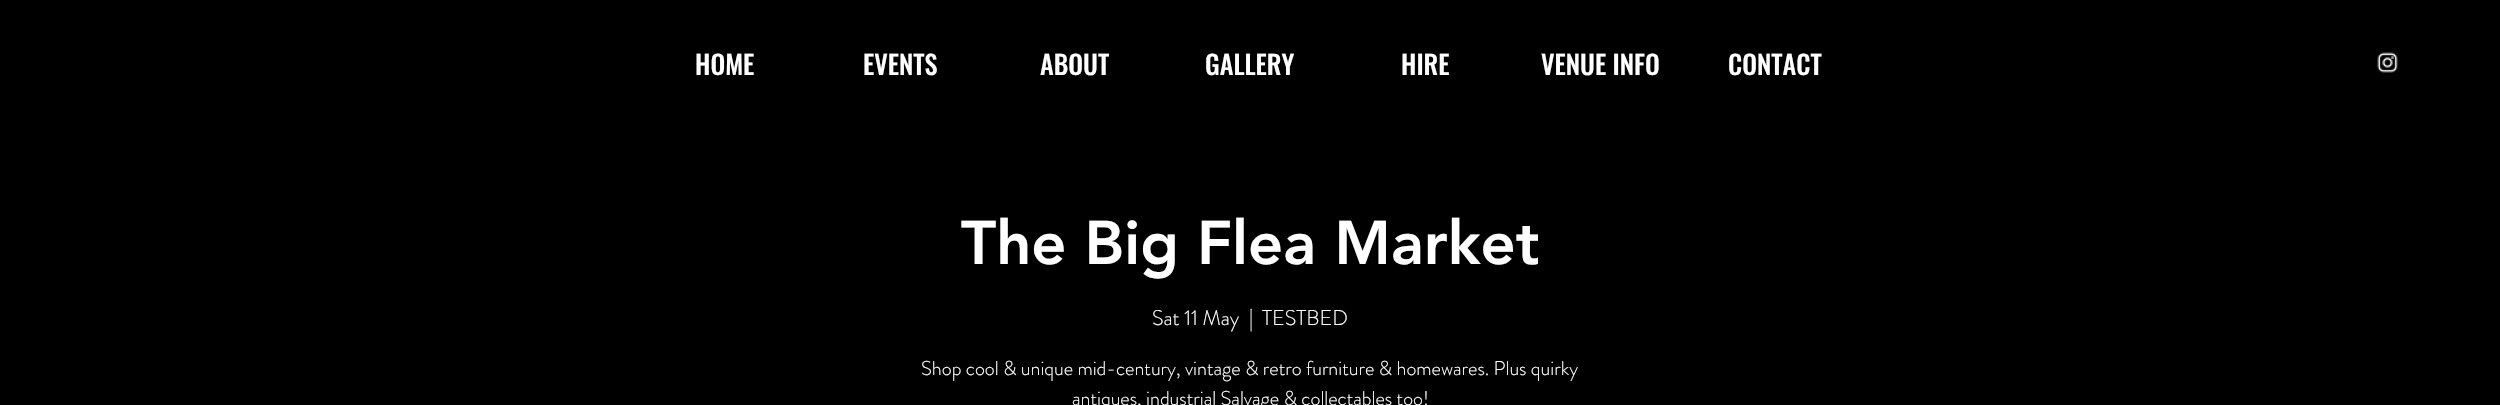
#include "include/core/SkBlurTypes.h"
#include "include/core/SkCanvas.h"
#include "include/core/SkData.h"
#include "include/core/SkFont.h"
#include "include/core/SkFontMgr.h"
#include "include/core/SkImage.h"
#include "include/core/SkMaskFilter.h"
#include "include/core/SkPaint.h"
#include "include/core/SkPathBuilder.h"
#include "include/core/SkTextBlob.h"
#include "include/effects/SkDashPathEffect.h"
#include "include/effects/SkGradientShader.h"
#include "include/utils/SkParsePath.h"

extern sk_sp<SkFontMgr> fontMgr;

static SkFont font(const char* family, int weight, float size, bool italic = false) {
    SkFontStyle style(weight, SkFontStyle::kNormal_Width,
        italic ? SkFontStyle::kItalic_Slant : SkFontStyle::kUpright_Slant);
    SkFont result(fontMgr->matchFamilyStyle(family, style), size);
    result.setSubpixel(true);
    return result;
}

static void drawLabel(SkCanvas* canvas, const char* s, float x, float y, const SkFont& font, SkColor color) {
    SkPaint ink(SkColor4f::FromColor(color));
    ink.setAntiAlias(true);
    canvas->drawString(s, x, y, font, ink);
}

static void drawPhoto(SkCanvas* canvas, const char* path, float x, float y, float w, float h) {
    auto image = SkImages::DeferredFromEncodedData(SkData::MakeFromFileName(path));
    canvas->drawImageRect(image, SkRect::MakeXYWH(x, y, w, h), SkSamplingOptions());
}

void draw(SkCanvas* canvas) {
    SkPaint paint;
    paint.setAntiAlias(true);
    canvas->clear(0xFF000000);
    SkFont font1 = font("Oswald", 500, 26.25f);
    drawLabel(canvas, "HOME", 695, 75, font1, 0xFFFFFFFF);
    drawLabel(canvas, "EVENTS", 863, 75, font1, 0xFFFFFFFF);
    drawLabel(canvas, "ABOUT", 1040, 75, font1, 0xFFFFFFFF);
    drawLabel(canvas, "GALLERY", 1205, 75, font1, 0xFFFFFFFF);
    drawLabel(canvas, "HIRE", 1401, 75, font1, 0xFFFFFFFF);
    drawLabel(canvas, "VENUE INFO", 1541, 75, font1, 0xFFFFFFFF);
    drawLabel(canvas, "CONTACT", 1728, 75, font1, 0xFFFFFFFF);
    drawPhoto(canvas, "assets/img1.png", 2377, 52, 21, 21);
    SkFont font2 = font("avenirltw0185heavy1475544", 900, 61.25f);
    drawLabel(canvas, "The Big Flea Market", 961, 264, font2, 0xFFFFFFFF);
    SkFont font3 = font("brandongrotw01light", 300, 21.25f);
    drawLabel(canvas, "Sat 11 May", 1152, 325, font3, 0xFFFFFFFF);
    drawLabel(canvas, "|", 1249, 325, font3, 0xFFFFFFFF);
    drawLabel(canvas, "TESTBED", 1262, 325, font3, 0xFFFFFFFF);
    SkFont font4 = font("brandongrotw01light", 300, 20);
    drawLabel(canvas, "Shop cool & unique mid-century, vintage & retro furniture & homewares. Plus quirky", 921, 375, font4, 0xFFFFFFFF);
    drawLabel(canvas, "antiques, industrial Salvage & collectables too!", 1072, 405, font4, 0xFFFFFFFF);
}
